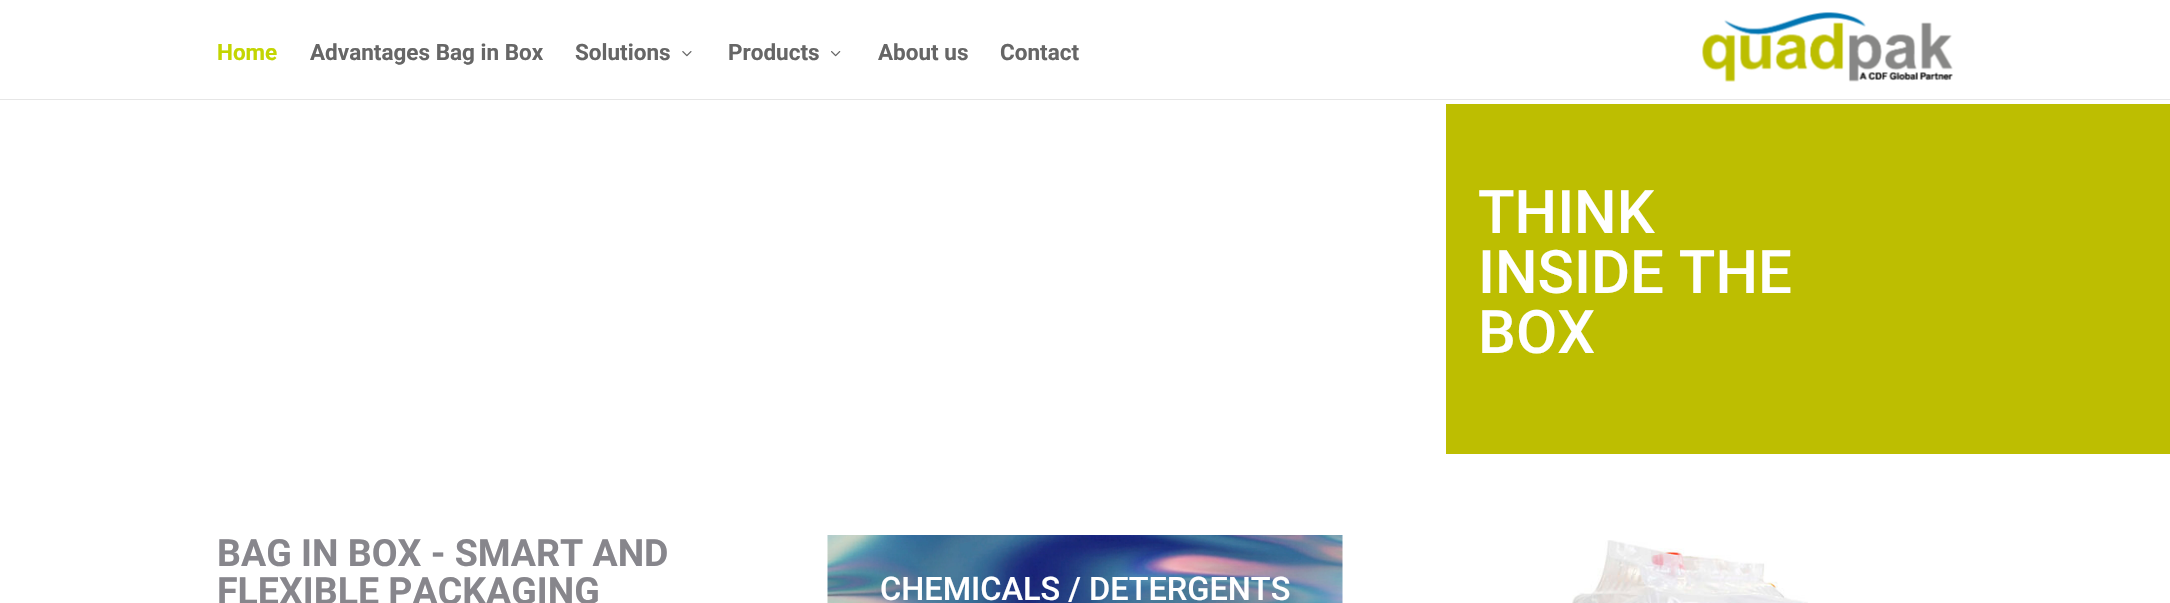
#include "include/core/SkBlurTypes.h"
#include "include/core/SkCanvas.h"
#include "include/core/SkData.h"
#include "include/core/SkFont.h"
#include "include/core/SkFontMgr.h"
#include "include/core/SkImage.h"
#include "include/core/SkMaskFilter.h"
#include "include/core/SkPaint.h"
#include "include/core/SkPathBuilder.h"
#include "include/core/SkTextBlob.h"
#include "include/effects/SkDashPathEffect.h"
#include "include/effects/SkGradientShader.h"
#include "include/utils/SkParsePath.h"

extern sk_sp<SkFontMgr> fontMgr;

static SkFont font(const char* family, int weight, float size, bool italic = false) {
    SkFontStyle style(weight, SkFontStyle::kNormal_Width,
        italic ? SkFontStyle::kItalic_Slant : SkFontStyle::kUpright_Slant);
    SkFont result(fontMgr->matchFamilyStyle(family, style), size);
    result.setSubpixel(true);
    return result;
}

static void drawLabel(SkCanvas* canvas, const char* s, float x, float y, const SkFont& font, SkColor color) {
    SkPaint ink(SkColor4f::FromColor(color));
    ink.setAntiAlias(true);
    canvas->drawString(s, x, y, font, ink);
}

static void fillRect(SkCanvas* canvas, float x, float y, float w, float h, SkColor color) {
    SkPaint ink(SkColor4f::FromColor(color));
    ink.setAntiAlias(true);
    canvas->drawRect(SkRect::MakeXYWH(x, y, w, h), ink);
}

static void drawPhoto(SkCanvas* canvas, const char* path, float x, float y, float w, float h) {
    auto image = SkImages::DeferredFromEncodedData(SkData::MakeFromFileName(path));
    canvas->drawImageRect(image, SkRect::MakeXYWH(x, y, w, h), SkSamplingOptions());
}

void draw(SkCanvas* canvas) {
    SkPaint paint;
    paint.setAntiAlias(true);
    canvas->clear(0xFFFFFFFF);
    fillRect(canvas, 0, 99, 2170, 1, 0xFFE6E6E6);
    SkFont font1 = font("Roboto", 700, 22.5f);
    drawLabel(canvas, "Home", 217, 60, font1, 0xFFC3D501);
    drawLabel(canvas, "Advantages Bag in Box", 310, 60, font1, 0xFF666666);
    drawLabel(canvas, "Solutions", 575, 60, font1, 0xFF666666);
    drawPhoto(canvas, "assets/img1.png", 682, 51, 10, 6);
    drawLabel(canvas, "Products", 728, 60, font1, 0xFF666666);
    drawPhoto(canvas, "assets/img2.png", 831, 51, 10, 6);
    drawLabel(canvas, "About us", 878, 60, font1, 0xFF666666);
    drawLabel(canvas, "Contact", 1000, 60, font1, 0xFF666666);
    drawPhoto(canvas, "assets/img3.png", 1702, 12, 251, 70);
    fillRect(canvas, 1446, 104, 724, 350, 0xFFBDBE01);
    SkFont font2 = font("Roboto", 500, 60);
    drawLabel(canvas, "THINK", 1478, 233, font2, 0xFFFFFFFF);
    drawLabel(canvas, "INSIDE THE", 1478, 293, font2, 0xFFFFFFFF);
    drawLabel(canvas, "BOX", 1478, 353, font2, 0xFFFFFFFF);
    SkFont font3 = font("Roboto", 700, 37.5f);
    drawLabel(canvas, "BAG IN BOX - SMART AND", 217, 566, font3, 0xFF87868C);
    drawLabel(canvas, "FLEXIBLE PACKAGING", 217, 604, font3, 0xFF87868C);
    drawPhoto(canvas, "assets/img4.png", 827, 535, 516, 68);
    SkFont font4 = font("Roboto", 500, 32.5f);
    drawLabel(canvas, "CHEMICALS / DETERGENTS", 880, 600, font4, 0xFFFFFFFF);
    drawPhoto(canvas, "assets/img5.png", 1572, 540, 236, 63);
}
